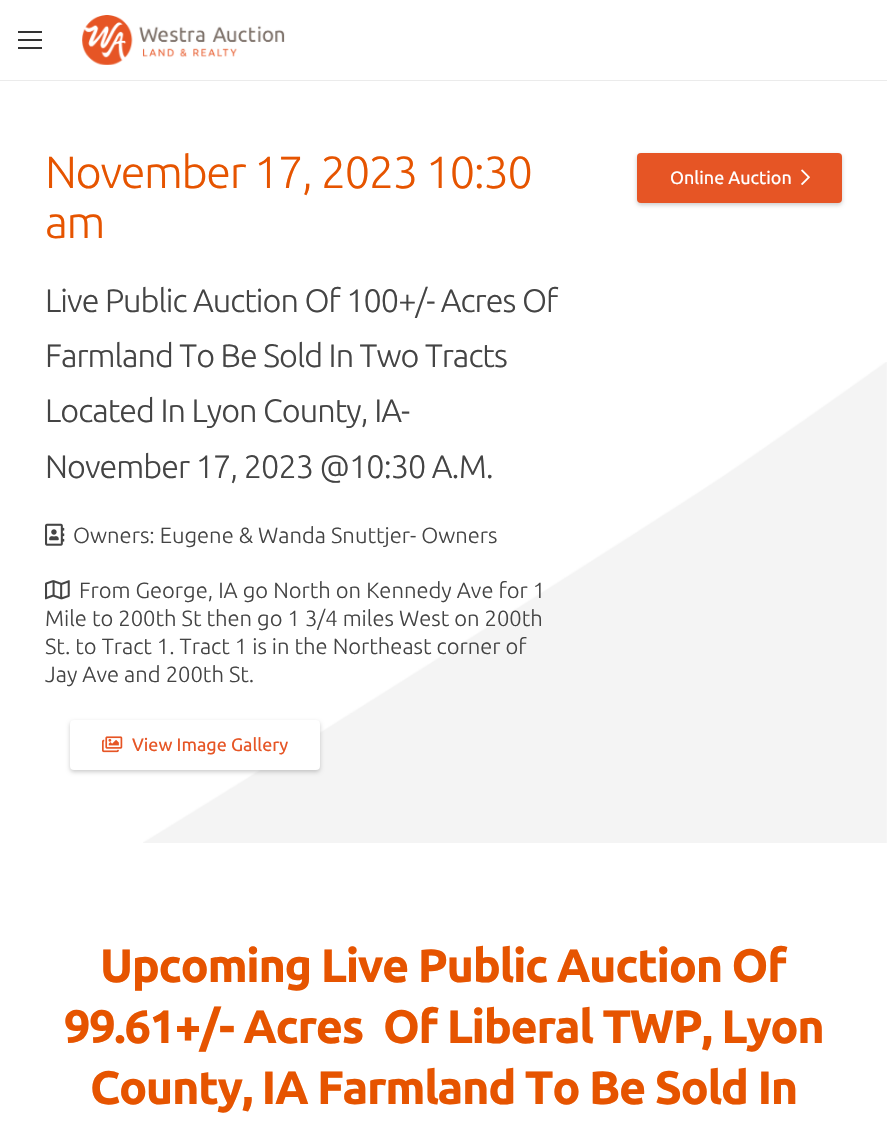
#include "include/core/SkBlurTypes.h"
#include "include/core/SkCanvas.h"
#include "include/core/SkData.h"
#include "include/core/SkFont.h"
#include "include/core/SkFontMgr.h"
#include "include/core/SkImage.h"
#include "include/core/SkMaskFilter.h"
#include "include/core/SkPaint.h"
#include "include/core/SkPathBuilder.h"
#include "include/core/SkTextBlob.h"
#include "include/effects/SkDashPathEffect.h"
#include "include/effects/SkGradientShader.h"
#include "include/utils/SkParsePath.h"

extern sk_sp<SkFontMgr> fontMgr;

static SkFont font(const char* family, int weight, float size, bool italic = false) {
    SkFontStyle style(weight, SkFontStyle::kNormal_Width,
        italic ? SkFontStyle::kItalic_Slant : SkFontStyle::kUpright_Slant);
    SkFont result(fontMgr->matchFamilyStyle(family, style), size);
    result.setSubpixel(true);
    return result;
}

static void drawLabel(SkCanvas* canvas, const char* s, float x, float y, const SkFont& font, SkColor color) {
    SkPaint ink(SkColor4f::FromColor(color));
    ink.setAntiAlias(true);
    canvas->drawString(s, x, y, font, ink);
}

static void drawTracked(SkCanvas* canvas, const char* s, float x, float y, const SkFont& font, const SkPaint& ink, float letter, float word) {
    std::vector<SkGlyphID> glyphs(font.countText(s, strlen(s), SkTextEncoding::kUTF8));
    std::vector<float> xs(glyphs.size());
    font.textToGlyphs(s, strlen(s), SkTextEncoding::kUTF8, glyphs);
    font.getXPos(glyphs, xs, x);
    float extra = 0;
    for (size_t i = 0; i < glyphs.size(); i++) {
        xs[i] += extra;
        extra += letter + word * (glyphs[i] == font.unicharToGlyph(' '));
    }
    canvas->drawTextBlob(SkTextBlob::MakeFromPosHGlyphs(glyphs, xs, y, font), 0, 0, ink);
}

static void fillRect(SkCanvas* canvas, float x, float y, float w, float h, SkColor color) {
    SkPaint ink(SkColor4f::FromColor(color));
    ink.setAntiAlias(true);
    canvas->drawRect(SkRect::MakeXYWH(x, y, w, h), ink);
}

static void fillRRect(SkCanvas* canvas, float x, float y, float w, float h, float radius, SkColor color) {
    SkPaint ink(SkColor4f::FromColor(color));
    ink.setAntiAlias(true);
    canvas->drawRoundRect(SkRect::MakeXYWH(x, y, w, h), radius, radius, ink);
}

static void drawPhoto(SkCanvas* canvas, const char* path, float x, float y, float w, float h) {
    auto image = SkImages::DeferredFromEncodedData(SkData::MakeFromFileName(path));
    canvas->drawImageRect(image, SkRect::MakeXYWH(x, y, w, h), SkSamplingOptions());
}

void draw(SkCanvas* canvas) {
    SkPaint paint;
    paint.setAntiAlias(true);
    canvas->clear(0xFFFFFFFF);
    fillRect(canvas, 0, 80, 887, 1, 0xFFEBEBEB);
    fillRect(canvas, 18, 39, 24, 2, 0xFF333333);
    fillRect(canvas, 18, 31, 24, 2, 0xFF333333);
    fillRect(canvas, 18, 47, 24, 2, 0xFF333333);
    drawPhoto(canvas, "assets/img1.png", 82, 15, 203, 50);
    SkFont font1 = font("Ubuntu", 300, 45);
    paint.setColor(0xFFE65400);
    drawTracked(canvas, "November 17, 2023 10:30", 45, 188, font1, paint, -1.35f, 0);
    drawTracked(canvas, "am", 45, 238, font1, paint, -1.35f, 0);
    SkFont font2 = font("Ubuntu", 300, 32.4f);
    paint.setColor(0xFF444444);
    drawTracked(canvas, "Live Public Auction Of 100+/- Acres Of", 45, 312, font2, paint, -0.95f, 0);
    drawPhoto(canvas, "assets/img6.png", 143, 362, 744, 481);
    drawTracked(canvas, "Farmland To Be Sold In Two Tracts", 45, 367, font2, paint, -0.95f, 0);
    drawTracked(canvas, "Located In Lyon County, IA-", 45, 422, font2, paint, -0.95f, 0);
    drawTracked(canvas, "November 17, 2023 @10:30 A.M.", 45, 478, font2, paint, -0.95f, 0);
    drawPhoto(canvas, "assets/img2.png", 45, 523, 20, 23);
    SkFont font3 = font("Ubuntu", 300, 22);
    drawLabel(canvas, "Owners: Eugene & Wanda Snuttjer- Owners", 73, 543, font3, 0xFF444444);
    drawPhoto(canvas, "assets/img3.png", 45, 580, 25, 20);
    drawLabel(canvas, "From George, IA go North on Kennedy Ave for 1", 79, 598, font3, 0xFF444444);
    drawLabel(canvas, "Mile to 200th St then go 1 3/4 miles West on 200th", 45, 626, font3, 0xFF444444);
    drawLabel(canvas, "St. to Tract 1. Tract 1 is in the Northeast corner of", 45, 654, font3, 0xFF444444);
    drawLabel(canvas, "Jay Ave and 200th St.", 45, 682, font3, 0xFF444444);
    paint.setColor(0x33000000);
    paint.setMaskFilter(SkMaskFilter::MakeBlur(kNormal_SkBlurStyle, 2));
    canvas->drawRoundRect(SkRect::MakeXYWH(70, 722, 250, 50), 4, 4, paint);
    paint.setMaskFilter(nullptr);
    fillRRect(canvas, 70, 720, 250, 50, 4, 0xFFFFFFFF);
    drawPhoto(canvas, "assets/img4.png", 102, 736, 21, 17);
    SkFont font4 = font("Ubuntu", 400, 18);
    drawLabel(canvas, "View Image Gallery", 132, 751, font4, 0xFFE65525);
    paint.setMaskFilter(SkMaskFilter::MakeBlur(kNormal_SkBlurStyle, 2));
    canvas->drawRoundRect(SkRect::MakeXYWH(637, 155, 205, 50), 4, 4, paint);
    paint.setMaskFilter(nullptr);
    fillRRect(canvas, 637, 153, 205, 50, 4, 0xFFE65525);
    drawLabel(canvas, "Online Auction", 670, 184, font4, 0xFFFFFFFF);
    drawPhoto(canvas, "assets/img5.png", 801, 169, 9, 16);
    SkFont font5 = font("Ubuntu", 700, 46.75f);
    paint.setColor(0xFFE65400);
    drawTracked(canvas, "Upcoming Live Public Auction Of", 100, 982, font5, paint, -1.4f, 0);
    drawTracked(canvas, "99.61+/- Acres", 64, 1043, font5, paint, -1.4f, 0);
    drawTracked(canvas, "Of Liberal TWP, Lyon", 383, 1043, font5, paint, -1.4f, 0);
    drawTracked(canvas, "County, IA Farmland To Be Sold In", 90, 1104, font5, paint, -1.4f, 0);
}
